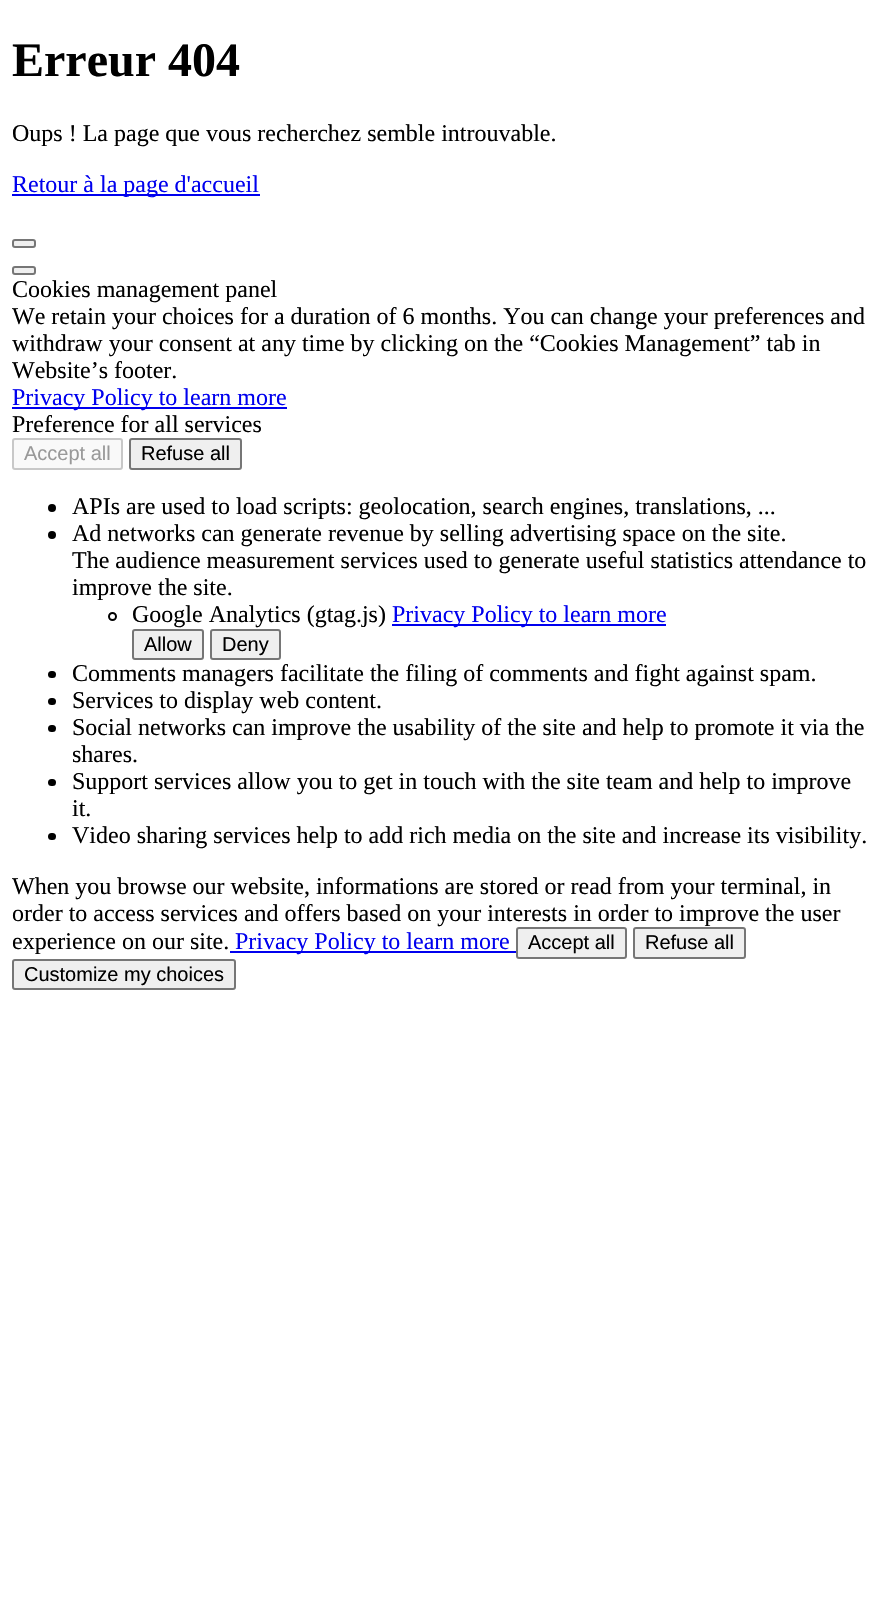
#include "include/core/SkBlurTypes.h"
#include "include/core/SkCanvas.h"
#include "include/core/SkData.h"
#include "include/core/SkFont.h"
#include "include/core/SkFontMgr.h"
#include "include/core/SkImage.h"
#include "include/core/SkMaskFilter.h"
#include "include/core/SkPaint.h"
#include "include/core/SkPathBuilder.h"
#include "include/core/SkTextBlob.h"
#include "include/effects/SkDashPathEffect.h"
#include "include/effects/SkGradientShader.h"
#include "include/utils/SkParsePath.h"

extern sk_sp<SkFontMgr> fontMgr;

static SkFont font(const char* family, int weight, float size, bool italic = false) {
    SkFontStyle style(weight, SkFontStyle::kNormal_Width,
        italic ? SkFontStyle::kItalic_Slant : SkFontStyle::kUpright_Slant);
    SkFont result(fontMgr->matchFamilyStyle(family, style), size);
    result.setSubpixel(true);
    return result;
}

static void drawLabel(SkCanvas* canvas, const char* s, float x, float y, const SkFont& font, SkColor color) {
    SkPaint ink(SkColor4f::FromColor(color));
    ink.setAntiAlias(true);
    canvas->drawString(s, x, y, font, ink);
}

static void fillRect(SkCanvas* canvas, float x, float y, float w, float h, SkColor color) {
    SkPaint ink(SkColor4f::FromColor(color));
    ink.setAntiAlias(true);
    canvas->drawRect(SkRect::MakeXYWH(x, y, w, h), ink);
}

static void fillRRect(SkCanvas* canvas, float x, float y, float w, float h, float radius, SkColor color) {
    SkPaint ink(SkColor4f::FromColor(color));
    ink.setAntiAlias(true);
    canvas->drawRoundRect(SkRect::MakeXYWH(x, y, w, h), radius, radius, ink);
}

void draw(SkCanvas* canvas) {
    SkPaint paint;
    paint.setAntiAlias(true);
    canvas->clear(0xFFFFFFFF);
    SkFont font1 = font("Liberation Serif", 700, 48);
    drawLabel(canvas, "Erreur 404", 12, 76, font1, 0xFF000000);
    SkFont font2 = font("Liberation Serif", 400, 24);
    drawLabel(canvas, "Oups ! La page que vous recherchez semble introuvable.", 12, 141, font2, 0xFF000000);
    fillRect(canvas, 12, 194, 248, 2, 0xFF0000EE);
    drawLabel(canvas, "Retour à la page d'accueil", 12, 192, font2, 0xFF0000EE);
    paint.setColor(0xFFEFEFEF);
    canvas->drawRoundRect(SkRect::MakeXYWH(13, 240, 22, 7), 2, 2, paint);
    paint.setStroke(true);
    paint.setStrokeWidth(2);
    paint.setColor(0xFF767676);
    canvas->drawRoundRect(SkRect::MakeXYWH(13, 240, 22, 7), 2, 2, paint);
    paint.setStroke(false);
    paint.setColor(0xFFEFEFEF);
    canvas->drawRoundRect(SkRect::MakeXYWH(13, 267, 22, 7), 2, 2, paint);
    paint.setStroke(true);
    paint.setColor(0xFF767676);
    canvas->drawRoundRect(SkRect::MakeXYWH(13, 267, 22, 7), 2, 2, paint);
    drawLabel(canvas, "Cookies management panel", 12, 297, font2, 0xFF000000);
    drawLabel(canvas, "We retain your choices for a duration of 6 months. You can change your preferences and", 12, 324, font2, 0xFF000000);
    drawLabel(canvas, "withdraw your consent at any time by clicking on the “Cookies Management” tab in", 12, 351, font2, 0xFF000000);
    drawLabel(canvas, "Website’s footer.", 12, 378, font2, 0xFF000000);
    fillRect(canvas, 12, 407, 275, 2, 0xFF0000EE);
    drawLabel(canvas, "Privacy Policy to learn more", 12, 405, font2, 0xFF0000EE);
    drawLabel(canvas, "Preference for all services", 12, 432, font2, 0xFF000000);
    paint.setStroke(false);
    paint.setColor(0xFFF9F9F9);
    canvas->drawRoundRect(SkRect::MakeXYWH(13, 439, 109, 30), 2, 2, paint);
    paint.setStroke(true);
    paint.setColor(0xFFC8C8C8);
    canvas->drawRoundRect(SkRect::MakeXYWH(13, 439, 109, 30), 2, 2, paint);
    SkFont font3 = font("Liberation Sans", 400, 20);
    drawLabel(canvas, "Accept all", 24, 460, font3, 0xFF999999);
    paint.setStroke(false);
    paint.setColor(0xFFEFEFEF);
    canvas->drawRoundRect(SkRect::MakeXYWH(130, 439, 111, 30), 2, 2, paint);
    paint.setStroke(true);
    paint.setColor(0xFF767676);
    canvas->drawRoundRect(SkRect::MakeXYWH(130, 439, 111, 30), 2, 2, paint);
    drawLabel(canvas, "Refuse all", 141, 460, font3, 0xFF000000);
    paint.setStroke(false);
    paint.setColor(0xFF000000);
    canvas->drawCircle(52, 508, 4, paint);
    drawLabel(canvas, "APIs are used to load scripts: geolocation, search engines, translations, ...", 72, 514, font2, 0xFF000000);
    canvas->drawCircle(52, 535, 4, paint);
    drawLabel(canvas, "Ad networks can generate revenue by selling advertising space on the site.", 72, 541, font2, 0xFF000000);
    drawLabel(canvas, "The audience measurement services used to generate useful statistics attendance to", 72, 568, font2, 0xFF000000);
    drawLabel(canvas, "improve the site.", 72, 595, font2, 0xFF000000);
    paint.setStroke(true);
    canvas->drawCircle(112.5f, 616.5f, 3.5f, paint);
    drawLabel(canvas, "Google Analytics (gtag.js)", 132, 622, font2, 0xFF000000);
    fillRect(canvas, 392, 624, 274, 2, 0xFF0000EE);
    drawLabel(canvas, "Privacy Policy to learn more", 392, 622, font2, 0xFF0000EE);
    paint.setStroke(false);
    paint.setColor(0xFFEFEFEF);
    canvas->drawRoundRect(SkRect::MakeXYWH(133, 630, 70, 29), 2, 2, paint);
    paint.setStroke(true);
    paint.setColor(0xFF767676);
    canvas->drawRoundRect(SkRect::MakeXYWH(133, 630, 70, 29), 2, 2, paint);
    drawLabel(canvas, "Allow", 144, 651, font3, 0xFF000000);
    paint.setStroke(false);
    paint.setColor(0xFFEFEFEF);
    canvas->drawRoundRect(SkRect::MakeXYWH(211, 630, 69, 29), 2, 2, paint);
    paint.setStroke(true);
    paint.setColor(0xFF767676);
    canvas->drawRoundRect(SkRect::MakeXYWH(211, 630, 69, 29), 2, 2, paint);
    drawLabel(canvas, "Deny", 222, 651, font3, 0xFF000000);
    fillRRect(canvas, 48, 671, 8, 7, 3.5f, 0xFF000000);
    drawLabel(canvas, "Comments managers facilitate the filing of comments and fight against spam.", 72, 681, font2, 0xFF000000);
    fillRRect(canvas, 48, 698, 8, 7, 3.5f, 0xFF000000);
    drawLabel(canvas, "Services to display web content.", 72, 708, font2, 0xFF000000);
    fillRRect(canvas, 48, 725, 8, 7, 3.5f, 0xFF000000);
    drawLabel(canvas, "Social networks can improve the usability of the site and help to promote it via the", 72, 735, font2, 0xFF000000);
    drawLabel(canvas, "shares.", 72, 762, font2, 0xFF000000);
    fillRRect(canvas, 48, 779, 8, 7, 3.5f, 0xFF000000);
    drawLabel(canvas, "Support services allow you to get in touch with the site team and help to improve", 72, 789, font2, 0xFF000000);
    drawLabel(canvas, "it.", 72, 816, font2, 0xFF000000);
    fillRRect(canvas, 48, 833, 8, 7, 3.5f, 0xFF000000);
    drawLabel(canvas, "Video sharing services help to add rich media on the site and increase its visibility.", 72, 843, font2, 0xFF000000);
    drawLabel(canvas, "When you browse our website, informations are stored or read from your terminal, in", 12, 894, font2, 0xFF000000);
    drawLabel(canvas, "order to access services and offers based on your interests in order to improve the user", 12, 921, font2, 0xFF000000);
    drawLabel(canvas, "experience on our site.", 12, 949, font2, 0xFF000000);
    fillRect(canvas, 230, 951, 286, 2, 0xFF0000EE);
    drawLabel(canvas, "Privacy Policy to learn more", 235, 949, font2, 0xFF0000EE);
    paint.setStroke(false);
    paint.setColor(0xFFEFEFEF);
    canvas->drawRoundRect(SkRect::MakeXYWH(517, 928, 109, 30), 2, 2, paint);
    paint.setStroke(true);
    paint.setColor(0xFF767676);
    canvas->drawRoundRect(SkRect::MakeXYWH(517, 928, 109, 30), 2, 2, paint);
    drawLabel(canvas, "Accept all", 528, 949, font3, 0xFF000000);
    paint.setStroke(false);
    paint.setColor(0xFFEFEFEF);
    canvas->drawRoundRect(SkRect::MakeXYWH(634, 928, 111, 30), 2, 2, paint);
    paint.setStroke(true);
    paint.setColor(0xFF767676);
    canvas->drawRoundRect(SkRect::MakeXYWH(634, 928, 111, 30), 2, 2, paint);
    drawLabel(canvas, "Refuse all", 645, 949, font3, 0xFF000000);
    paint.setStroke(false);
    paint.setColor(0xFFEFEFEF);
    canvas->drawRoundRect(SkRect::MakeXYWH(13, 960, 222, 29), 2, 2, paint);
    paint.setStroke(true);
    paint.setColor(0xFF767676);
    canvas->drawRoundRect(SkRect::MakeXYWH(13, 960, 222, 29), 2, 2, paint);
    drawLabel(canvas, "Customize my choices", 24, 981, font3, 0xFF000000);
}
